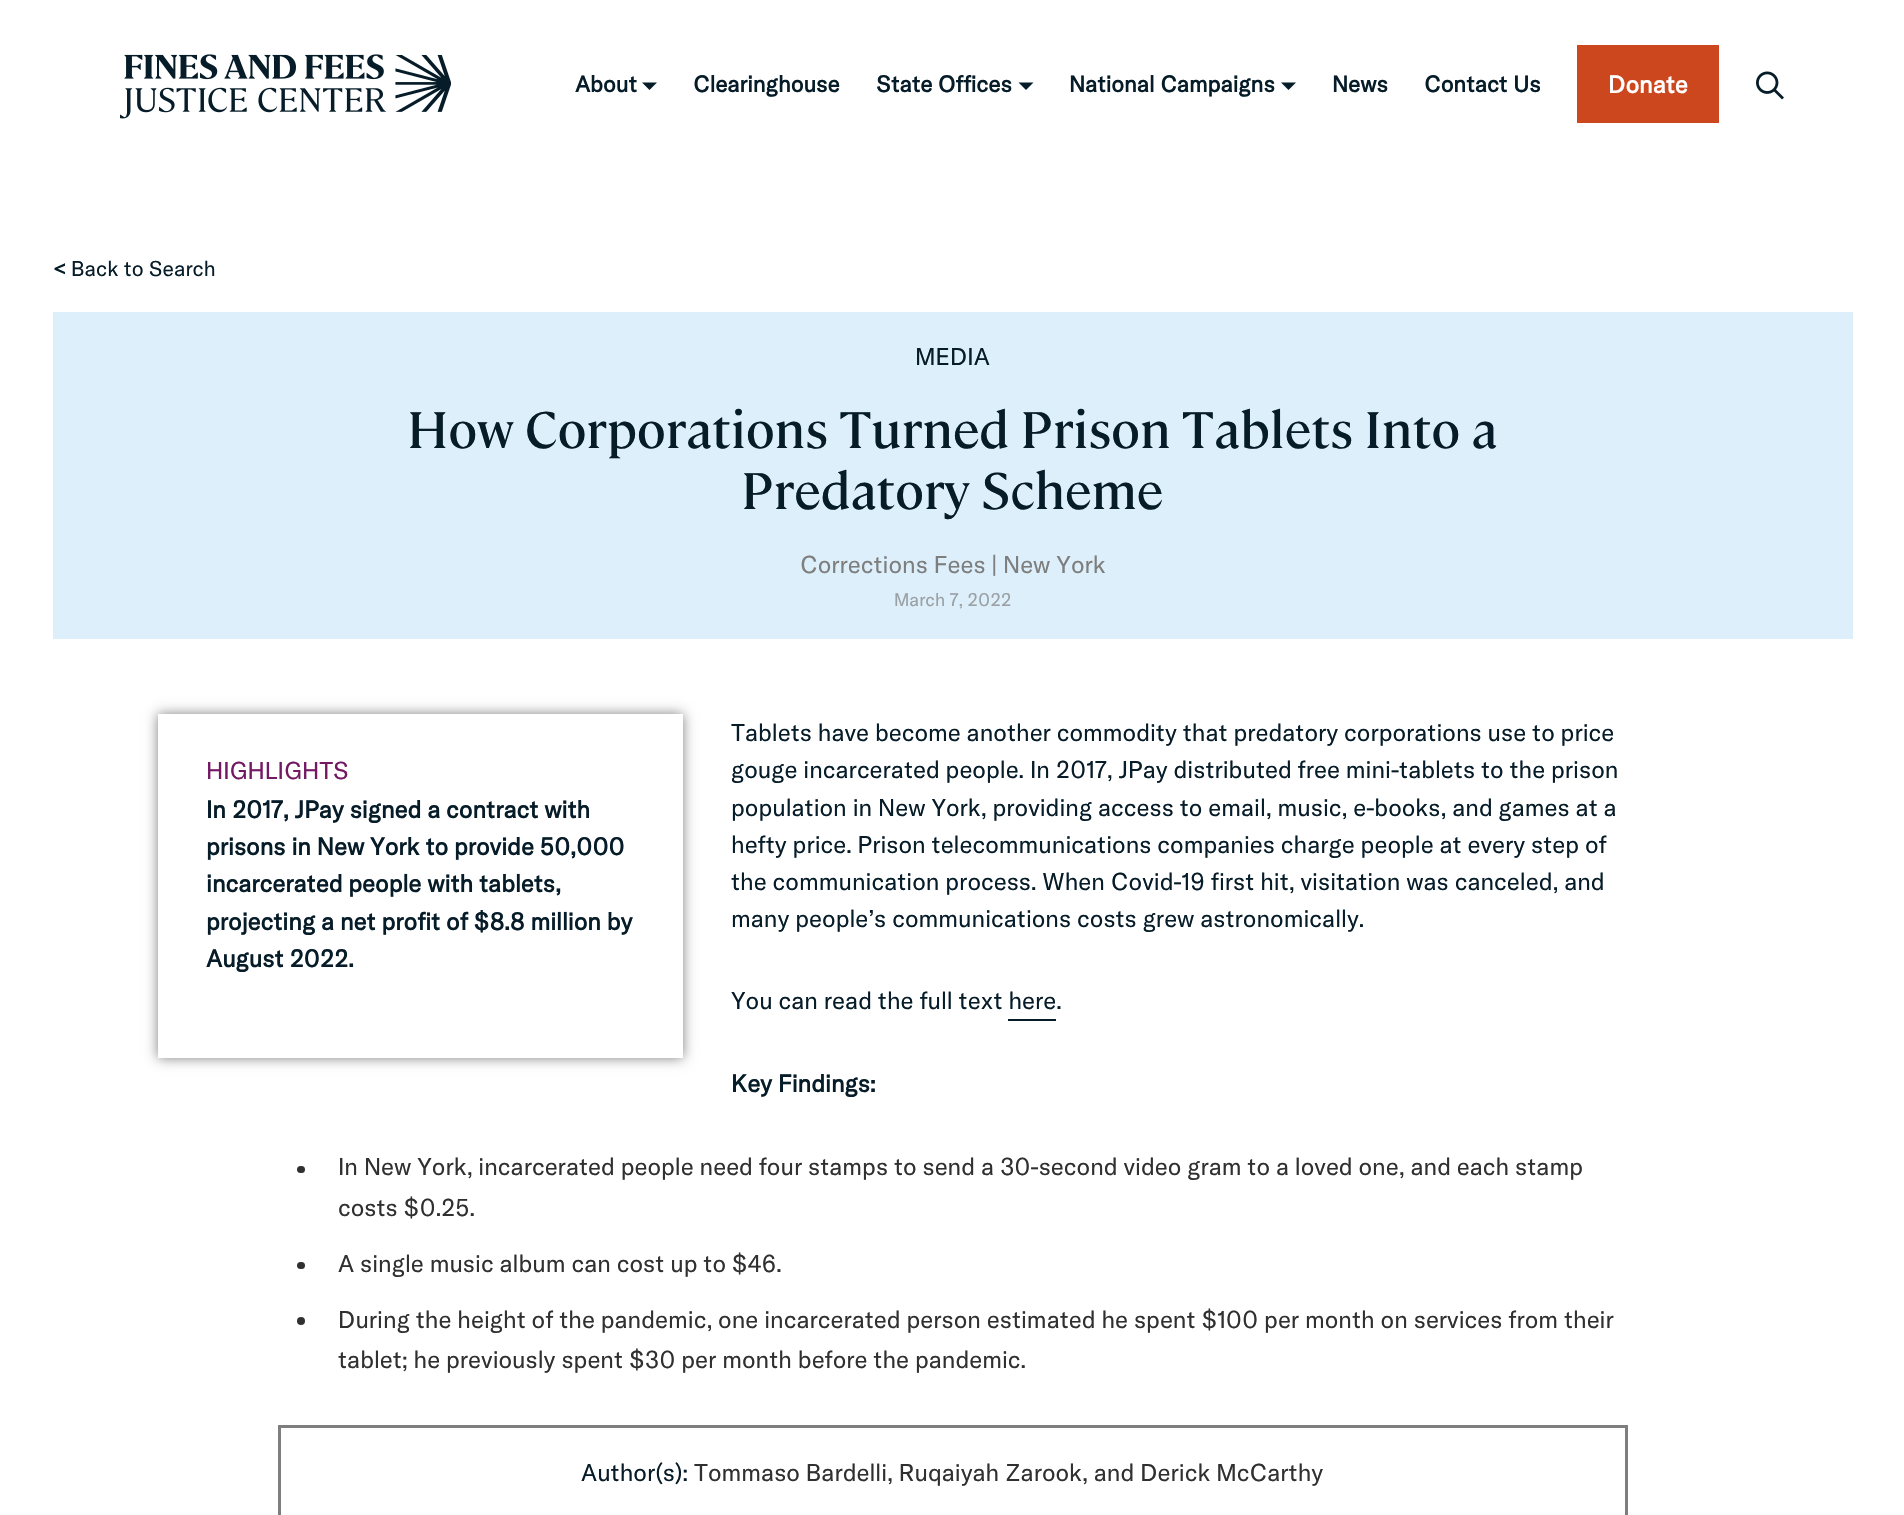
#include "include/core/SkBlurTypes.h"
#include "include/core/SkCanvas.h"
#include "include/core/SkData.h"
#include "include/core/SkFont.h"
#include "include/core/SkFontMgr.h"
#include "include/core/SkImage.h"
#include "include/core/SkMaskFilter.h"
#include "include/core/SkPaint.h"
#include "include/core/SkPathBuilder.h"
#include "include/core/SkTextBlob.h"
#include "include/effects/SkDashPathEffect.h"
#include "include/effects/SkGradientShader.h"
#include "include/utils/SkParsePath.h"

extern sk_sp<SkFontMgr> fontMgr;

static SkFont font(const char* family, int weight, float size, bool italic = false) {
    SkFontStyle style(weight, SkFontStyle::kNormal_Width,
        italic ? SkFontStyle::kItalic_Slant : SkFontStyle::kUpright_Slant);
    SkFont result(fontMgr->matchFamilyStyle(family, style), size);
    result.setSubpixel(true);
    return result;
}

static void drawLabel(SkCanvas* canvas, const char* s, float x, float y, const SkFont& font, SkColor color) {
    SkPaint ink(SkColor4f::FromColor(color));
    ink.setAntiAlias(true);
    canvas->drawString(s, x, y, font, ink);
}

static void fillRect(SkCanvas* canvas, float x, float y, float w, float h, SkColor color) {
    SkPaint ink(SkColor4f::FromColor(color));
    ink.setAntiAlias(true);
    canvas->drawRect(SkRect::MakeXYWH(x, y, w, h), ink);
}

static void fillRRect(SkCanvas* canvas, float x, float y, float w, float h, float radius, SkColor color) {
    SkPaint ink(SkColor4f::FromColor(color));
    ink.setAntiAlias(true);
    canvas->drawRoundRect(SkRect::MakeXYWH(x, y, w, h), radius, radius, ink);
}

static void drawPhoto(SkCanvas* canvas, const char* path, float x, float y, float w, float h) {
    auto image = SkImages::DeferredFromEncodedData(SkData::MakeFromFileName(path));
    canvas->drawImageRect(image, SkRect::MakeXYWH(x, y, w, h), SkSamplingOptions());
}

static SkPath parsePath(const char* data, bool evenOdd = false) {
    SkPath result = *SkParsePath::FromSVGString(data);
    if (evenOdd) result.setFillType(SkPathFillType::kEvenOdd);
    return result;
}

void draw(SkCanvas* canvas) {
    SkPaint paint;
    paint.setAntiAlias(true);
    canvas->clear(0xFFFFFFFF);
    drawPhoto(canvas, "assets/img1.png", 120, 54, 331, 65);
    SkFont font1 = font("GT America", 700, 22.5f);
    drawLabel(canvas, "About", 575, 92, font1, 0xFF061C28);
    paint.setColor(0xFF061C28);
    canvas->drawPath(parsePath("M642 82.5H657L649.5 90Z"), paint);
    drawLabel(canvas, "Clearinghouse", 693, 92, font1, 0xFF061C28);
    drawLabel(canvas, "State Offices", 876, 92, font1, 0xFF061C28);
    canvas->drawPath(parsePath("M1018.5 82.5H1033.5L1026 90Z"), paint);
    drawLabel(canvas, "National Campaigns", 1069, 92, font1, 0xFF061C28);
    canvas->drawPath(parsePath("M1281 82.5H1296L1288.5 90Z"), paint);
    drawLabel(canvas, "News", 1332, 92, font1, 0xFF061C28);
    drawLabel(canvas, "Contact Us", 1424, 92, font1, 0xFF061C28);
    fillRect(canvas, 1577, 45, 142, 78, 0xFFCC471E);
    SkFont font2 = font("GT America", 700, 24);
    drawLabel(canvas, "Donate", 1608, 93, font2, 0xFFFFFFFF);
    drawPhoto(canvas, "assets/img2.png", 1756, 71, 28, 29);
    SkFont font3 = font("GT America", 700, 21);
    drawLabel(canvas, "<", 53, 276, font3, 0xFF061C28);
    SkFont font4 = font("GT America", 400, 21);
    drawLabel(canvas, "Back to Search", 71, 276, font4, 0xFF061C28);
    fillRect(canvas, 53, 312, 1800, 327, 0xFFDDEFFB);
    SkFont font5 = font("GT America", 400, 24);
    drawLabel(canvas, "MEDIA", 915, 365, font5, 0xFF061C28);
    SkFont font6 = font("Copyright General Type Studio", 500, 51);
    drawLabel(canvas, "How Corporations Turned Prison Tablets Into a", 407, 448, font6, 0xFF061C28);
    drawLabel(canvas, "Predatory Scheme", 741, 509, font6, 0xFF061C28);
    drawLabel(canvas, "Corrections Fees | New York", 800, 573, font5, 0xFF7D7E7D);
    SkFont font7 = font("GT America", 400, 18);
    drawLabel(canvas, "March 7, 2022", 894, 606, font7, 0xFF9AA0A3);
    canvas->save();
    canvas->clipPath(parsePath("M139 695H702V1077H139ZM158 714H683V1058H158Z", true), true);
    paint.setColor(0xFF7D7E7D);
    paint.setMaskFilter(SkMaskFilter::MakeBlur(kNormal_SkBlurStyle, 6));
    canvas->drawRect(SkRect::MakeXYWH(158, 714, 525, 344), paint);
    paint.setMaskFilter(nullptr);
    canvas->restore();
    drawLabel(canvas, "HIGHLIGHTS", 206, 779, font5, 0xFF731963);
    drawLabel(canvas, "In 2017, JPay signed a contract with", 206, 818, font2, 0xFF061C28);
    drawLabel(canvas, "prisons in New York to provide 50,000", 206, 855, font2, 0xFF061C28);
    drawLabel(canvas, "incarcerated people with tablets,", 206, 892, font2, 0xFF061C28);
    drawLabel(canvas, "projecting a net profit of $8.8 million by", 206, 930, font2, 0xFF061C28);
    drawLabel(canvas, "August 2022.", 206, 967, font2, 0xFF061C28);
    drawLabel(canvas, "Tablets have become another commodity that predatory corporations use to price", 731, 741, font5, 0xFF061C28);
    drawLabel(canvas, "gouge incarcerated people. In 2017, JPay distributed free mini-tablets to the prison", 731, 778, font5, 0xFF061C28);
    drawLabel(canvas, "population in New York, providing access to email, music, e-books, and games at a", 731, 816, font5, 0xFF061C28);
    drawLabel(canvas, "hefty price. Prison telecommunications companies charge people at every step of", 731, 853, font5, 0xFF061C28);
    drawLabel(canvas, "the communication process. When Covid-19 first hit, visitation was canceled, and", 731, 890, font5, 0xFF061C28);
    drawLabel(canvas, "many people’s communications costs grew astronomically.", 731, 927, font5, 0xFF061C28);
    drawLabel(canvas, "You can read the full text here.", 731, 1009, font5, 0xFF061C28);
    fillRect(canvas, 1008, 1019, 48, 2, 0xFF061C28);
    drawLabel(canvas, "Key Findings:", 731, 1092, font2, 0xFF061C28);
    fillRRect(canvas, 297, 1166, 8, 7, 3.5f, 0xFF303030);
    drawLabel(canvas, "In New York, incarcerated people need four stamps to send a 30-second video gram to a loved one, and each stamp", 338, 1175, font5, 0xFF303030);
    drawLabel(canvas, "costs $0.25.", 338, 1216, font5, 0xFF303030);
    fillRRect(canvas, 297, 1262, 8, 7, 3.5f, 0xFF303030);
    drawLabel(canvas, "A single music album can cost up to $46.", 338, 1272, font5, 0xFF303030);
    paint.setColor(0xFF303030);
    canvas->drawCircle(301, 1321, 4, paint);
    drawLabel(canvas, "During the height of the pandemic, one incarcerated person estimated he spent $100 per month on services from their", 338, 1328, font5, 0xFF303030);
    drawLabel(canvas, "tablet; he previously spent $30 per month before the pandemic.", 338, 1368, font5, 0xFF303030);
    paint.setStroke(true);
    paint.setStrokeWidth(3);
    paint.setColor(0xFF7D7E7D);
    canvas->drawRect(SkRect::MakeXYWH(279.5f, 1426.5f, 1347, 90), paint);
    drawLabel(canvas, "Author(s):", 581, 1481, font5, 0xFF061C28);
    drawLabel(canvas, "Tommaso Bardelli, Ruqaiyah Zarook, and Derick McCarthy", 694, 1481, font5, 0xFF303030);
}
